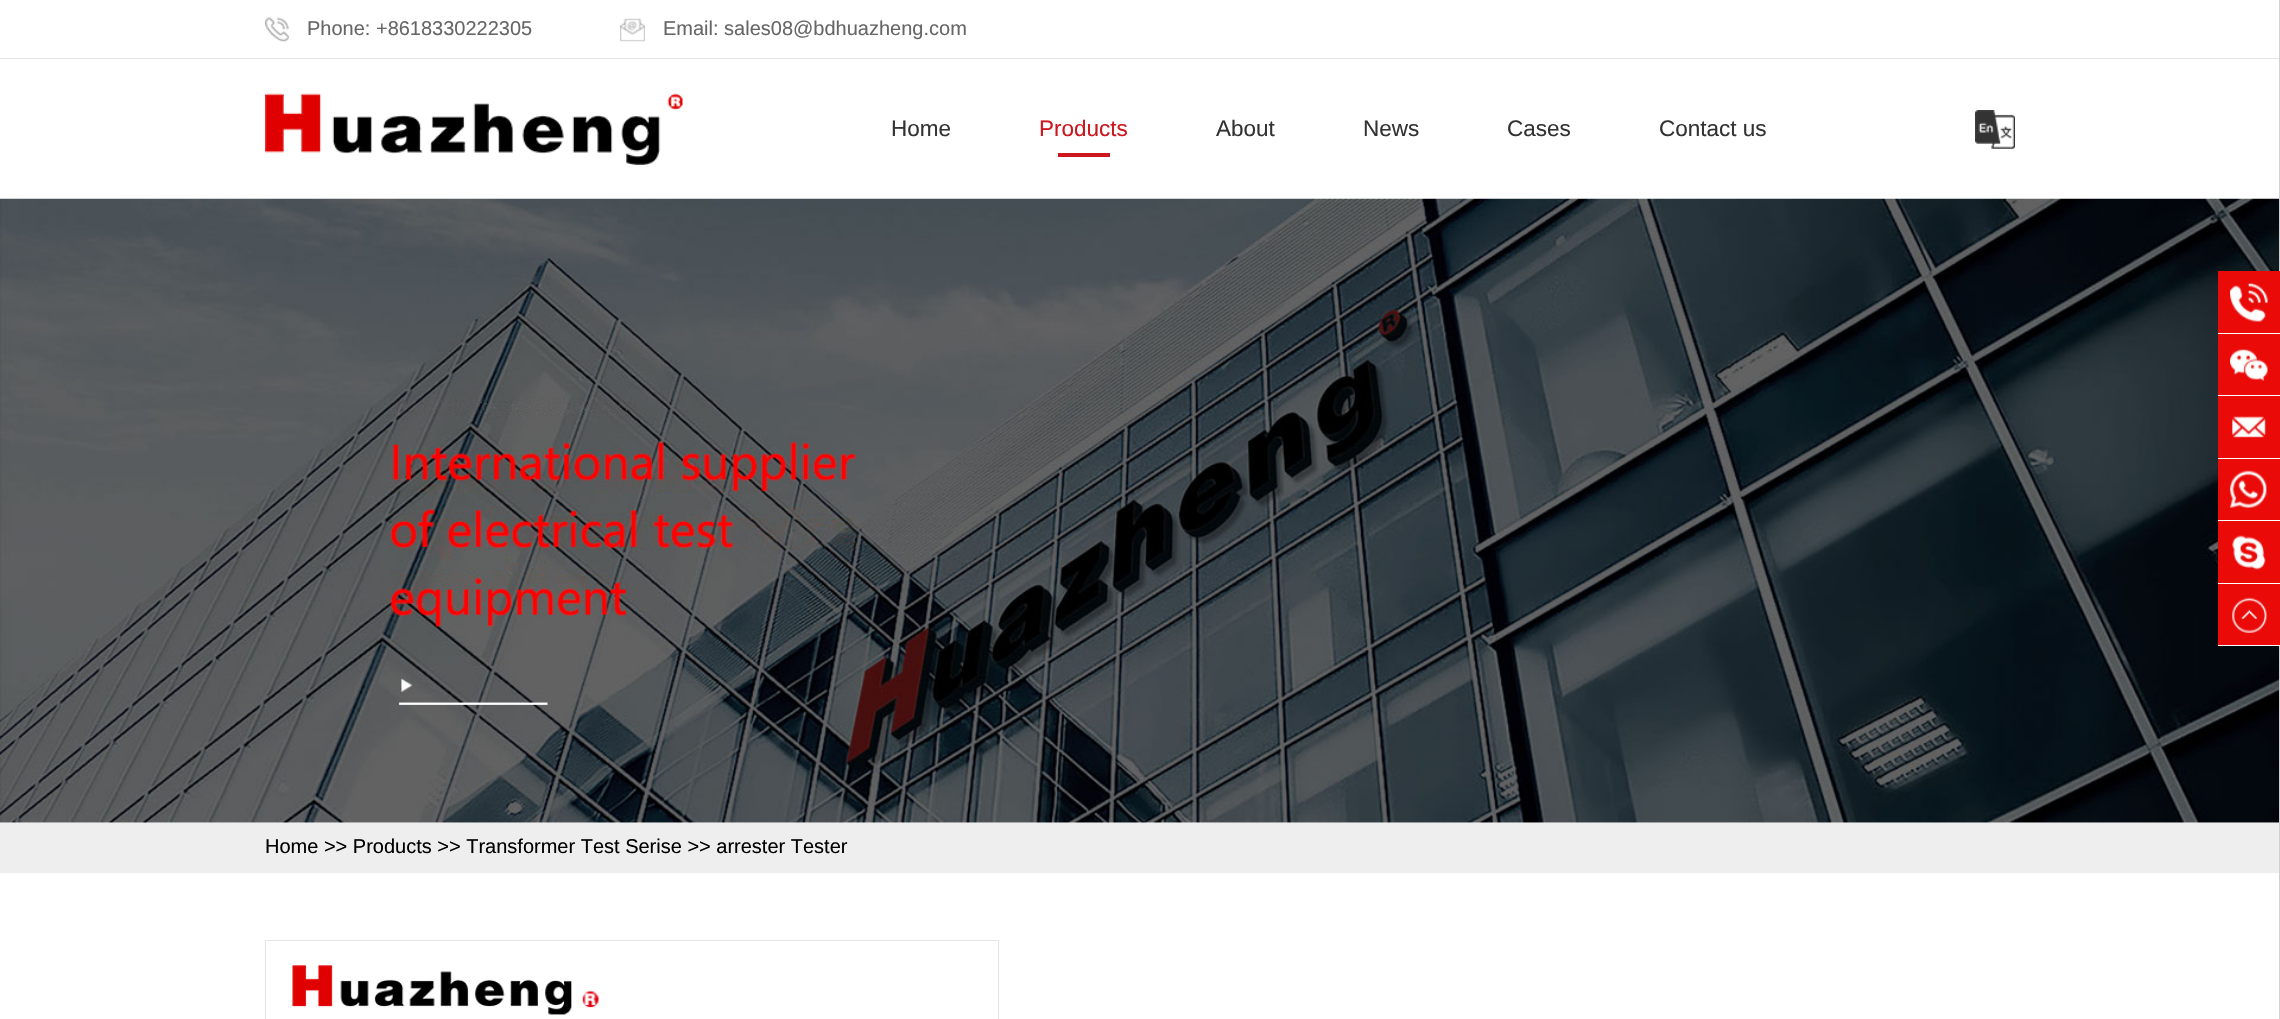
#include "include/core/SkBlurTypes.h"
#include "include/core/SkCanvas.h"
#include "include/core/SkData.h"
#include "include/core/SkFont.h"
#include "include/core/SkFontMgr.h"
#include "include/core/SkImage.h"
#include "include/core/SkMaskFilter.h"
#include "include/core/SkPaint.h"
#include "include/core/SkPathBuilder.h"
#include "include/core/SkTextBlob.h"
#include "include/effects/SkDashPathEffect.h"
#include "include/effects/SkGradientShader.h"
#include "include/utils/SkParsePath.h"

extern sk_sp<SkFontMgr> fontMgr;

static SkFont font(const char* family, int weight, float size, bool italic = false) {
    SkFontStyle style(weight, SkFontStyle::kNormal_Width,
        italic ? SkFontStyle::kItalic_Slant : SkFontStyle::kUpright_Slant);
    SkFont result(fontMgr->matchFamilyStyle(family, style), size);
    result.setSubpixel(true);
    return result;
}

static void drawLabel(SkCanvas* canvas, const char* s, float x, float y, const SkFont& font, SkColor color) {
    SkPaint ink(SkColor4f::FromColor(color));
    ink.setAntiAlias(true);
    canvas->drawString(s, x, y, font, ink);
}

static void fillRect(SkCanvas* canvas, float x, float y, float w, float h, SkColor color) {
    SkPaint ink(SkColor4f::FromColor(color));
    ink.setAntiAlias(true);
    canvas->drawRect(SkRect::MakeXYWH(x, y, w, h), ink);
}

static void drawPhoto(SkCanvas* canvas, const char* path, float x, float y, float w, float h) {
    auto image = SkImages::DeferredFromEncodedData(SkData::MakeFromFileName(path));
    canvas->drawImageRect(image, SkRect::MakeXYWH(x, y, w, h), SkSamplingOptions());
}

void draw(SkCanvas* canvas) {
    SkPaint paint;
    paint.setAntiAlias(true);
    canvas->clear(0xFFFFFFFF);
    fillRect(canvas, 0, 58, 2280, 1, 0xFFE5E5E5);
    drawPhoto(canvas, "assets/img1.png", 265, 17, 24, 25);
    SkFont font1 = font("Liberation Sans", 400, 20);
    drawLabel(canvas, "Phone: +8618330222305", 307, 35, font1, 0xFF666666);
    drawPhoto(canvas, "assets/img2.png", 620, 18, 25, 24);
    drawLabel(canvas, "Email: sales08@bdhuazheng.com", 663, 35, font1, 0xFF666666);
    drawPhoto(canvas, "assets/img3.png", 265, 93, 418, 72);
    SkFont font2 = font("Liberation Sans", 400, 22.5f);
    drawLabel(canvas, "Home", 891, 136, font2, 0xFF333333);
    drawLabel(canvas, "Products", 1039, 136, font2, 0xFFCC171E);
    fillRect(canvas, 1058, 153, 52, 4, 0xFFCC171E);
    drawLabel(canvas, "About", 1216, 136, font2, 0xFF333333);
    drawLabel(canvas, "News", 1363, 136, font2, 0xFF333333);
    drawLabel(canvas, "Cases", 1507, 136, font2, 0xFF333333);
    drawLabel(canvas, "Contact us", 1659, 136, font2, 0xFF333333);
    drawPhoto(canvas, "assets/img4.png", 1975, 110, 40, 39);
    fillRect(canvas, 2279, 0, 1, 1019, 0xFFD0D0D0);
    drawPhoto(canvas, "assets/img11.png", 0, 198, 2279, 625);
    fillRect(canvas, 2218, 271, 62, 62, 0xFFEA0A08);
    fillRect(canvas, 2218, 333, 62, 1, 0xFFFFFFFF);
    drawPhoto(canvas, "assets/img5.png", 2230, 283, 38, 39);
    fillRect(canvas, 2218, 334, 62, 61, 0xFFEA0A08);
    fillRect(canvas, 2218, 395, 62, 1, 0xFFFFFFFF);
    drawPhoto(canvas, "assets/img6.png", 2230, 349, 38, 32);
    fillRect(canvas, 2218, 396, 62, 62, 0xFFEA0A08);
    fillRect(canvas, 2218, 458, 62, 1, 0xFFFFFFFF);
    drawPhoto(canvas, "assets/img7.png", 2232, 416, 34, 22);
    fillRect(canvas, 2218, 459, 62, 61, 0xFFEA0A08);
    fillRect(canvas, 2218, 520, 62, 1, 0xFFFFFFFF);
    drawPhoto(canvas, "assets/img8.png", 2230, 470, 37, 38);
    fillRect(canvas, 2218, 521, 62, 62, 0xFFEA0A08);
    fillRect(canvas, 2218, 583, 62, 1, 0xFFFFFFFF);
    drawPhoto(canvas, "assets/img9.png", 2232, 535, 34, 35);
    fillRect(canvas, 2218, 584, 62, 61, 0xFFEA0A08);
    fillRect(canvas, 2218, 645, 62, 1, 0xFFFFFFFF);
    drawPhoto(canvas, "assets/img10.png", 2232, 597, 35, 36);
    fillRect(canvas, 0, 823, 2279, 50, 0xFFEEEEEE);
    drawLabel(canvas, "Home >> Products >> Transformer Test Serise >> arrester Tester", 265, 853, font1, 0xFF000000);
    paint.setStroke(true);
    paint.setStrokeWidth(1);
    paint.setColor(0xFFE5E5E5);
    canvas->drawRect(SkRect::MakeXYWH(265.5f, 940.5f, 733, 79), paint);
    drawPhoto(canvas, "assets/img12.png", 292, 959, 307, 56);
}
